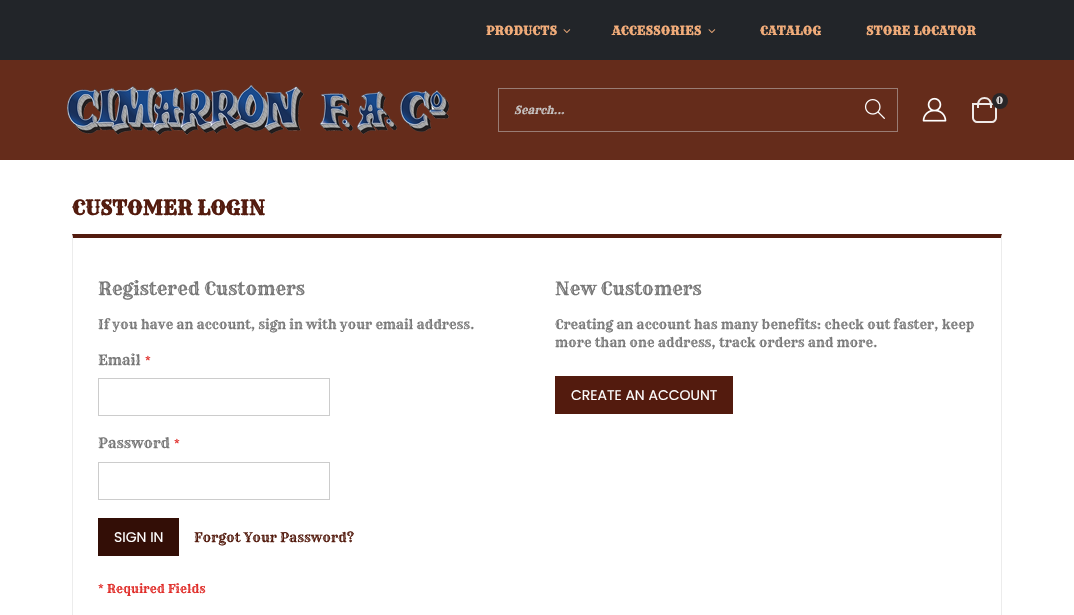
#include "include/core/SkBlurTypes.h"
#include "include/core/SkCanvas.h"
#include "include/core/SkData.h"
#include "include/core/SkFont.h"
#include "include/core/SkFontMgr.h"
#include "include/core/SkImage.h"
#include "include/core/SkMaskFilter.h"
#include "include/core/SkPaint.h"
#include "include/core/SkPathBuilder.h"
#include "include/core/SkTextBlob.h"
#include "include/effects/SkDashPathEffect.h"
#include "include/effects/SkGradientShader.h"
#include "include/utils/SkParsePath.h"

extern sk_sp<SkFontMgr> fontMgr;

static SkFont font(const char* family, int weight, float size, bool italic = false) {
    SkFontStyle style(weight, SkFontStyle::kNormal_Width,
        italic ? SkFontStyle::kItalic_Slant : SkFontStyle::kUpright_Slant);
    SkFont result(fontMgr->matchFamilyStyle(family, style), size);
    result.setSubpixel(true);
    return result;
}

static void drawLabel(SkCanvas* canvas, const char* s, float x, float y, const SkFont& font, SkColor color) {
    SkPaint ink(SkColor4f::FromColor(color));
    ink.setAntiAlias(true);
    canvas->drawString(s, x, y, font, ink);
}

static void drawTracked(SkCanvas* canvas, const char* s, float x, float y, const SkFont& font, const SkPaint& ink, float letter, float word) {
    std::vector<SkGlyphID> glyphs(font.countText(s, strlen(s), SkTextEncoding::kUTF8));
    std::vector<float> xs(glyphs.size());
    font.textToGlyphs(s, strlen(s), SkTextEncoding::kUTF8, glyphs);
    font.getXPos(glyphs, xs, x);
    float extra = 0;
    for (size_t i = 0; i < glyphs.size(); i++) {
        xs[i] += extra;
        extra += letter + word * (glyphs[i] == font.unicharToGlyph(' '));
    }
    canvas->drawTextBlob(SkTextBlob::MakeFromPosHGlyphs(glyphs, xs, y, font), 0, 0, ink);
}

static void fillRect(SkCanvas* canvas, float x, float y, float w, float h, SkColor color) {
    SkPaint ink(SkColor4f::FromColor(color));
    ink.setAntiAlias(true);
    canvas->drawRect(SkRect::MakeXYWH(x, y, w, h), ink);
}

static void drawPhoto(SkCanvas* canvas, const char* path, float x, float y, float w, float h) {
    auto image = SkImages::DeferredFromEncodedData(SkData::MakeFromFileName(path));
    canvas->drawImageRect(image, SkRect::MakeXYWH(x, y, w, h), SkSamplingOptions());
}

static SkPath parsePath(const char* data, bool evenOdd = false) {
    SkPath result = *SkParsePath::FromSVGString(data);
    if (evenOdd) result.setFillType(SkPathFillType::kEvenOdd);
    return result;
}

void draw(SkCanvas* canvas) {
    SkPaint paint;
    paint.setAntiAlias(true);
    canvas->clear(0xFFFFFFFF);
    fillRect(canvas, 0, 60, 1074, 100, 0xFF652C1B);
    fillRect(canvas, 0, 0, 1074, 60, 0xFF222529);
    SkFont font1 = font("Rye", 700, 12);
    paint.setColor(0xFFF3AD7A);
    drawTracked(canvas, "PRODUCTS", 486, 35, font1, paint, 0.25f, 0);
    drawPhoto(canvas, "assets/img1.png", 563, 29, 8, 4);
    drawTracked(canvas, "ACCESSORIES", 612, 35, font1, paint, 0.25f, 0);
    drawPhoto(canvas, "assets/img1.png", 708, 29, 8, 4);
    drawTracked(canvas, "CATALOG", 760, 35, font1, paint, 0.25f, 0);
    drawTracked(canvas, "STORE LOCATOR", 866, 35, font1, paint, 0.25f, 0);
    drawPhoto(canvas, "assets/img2.png", 67, 85, 382, 50);
    paint.setStroke(true);
    paint.setStrokeWidth(1);
    paint.setColor(0xFF997C74);
    canvas->drawRect(SkRect::MakeXYWH(498.5f, 88.5f, 399, 43), paint);
    SkFont font2 = font("Rye", 400, 11, true);
    drawLabel(canvas, "Search...", 514, 114, font2, 0xFFCCCCCC);
    drawPhoto(canvas, "assets/img3.png", 864, 99, 21, 20);
    drawPhoto(canvas, "assets/img4.png", 922, 97, 25, 25);
    paint.setStrokeWidth(2);
    paint.setColor(0xFFF0EAE8);
    canvas->drawPath(parsePath("M973 104H996V118C996 120 994 122 992 122H977C975 122 973 120 973 118Z"), paint);
    paint.setStroke(false);
    canvas->drawPath(parsePath("M984.5 97C988.5 97 992 100.5 992 104.5V108H977V104.5C977 100.5 980.5 97 984.5 97ZM984.5 99C990 99 990 104 990 108H979C979 104 979 99 984.5 99Z", true), paint);
    paint.setColor(0xFF292628);
    canvas->drawCircle(1000, 101, 8, paint);
    SkFont font3 = font("Rye", 400, 10);
    drawLabel(canvas, "0", 996, 104, font3, 0xFFF0EAE8);
    SkFont font4 = font("Rye", 700, 20);
    drawLabel(canvas, "CUSTOMER LOGIN", 72, 215, font4, 0xFF531B0E);
    paint.setColor(0xFF531B0E);
    canvas->drawPath(parsePath("M72 234H1002L1001 238H73Z"), paint);
    paint.setColor(0xFFECECEC);
    canvas->drawPath(parsePath("M1002 234V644L1001 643V238Z"), paint);
    canvas->drawPath(parsePath("M72 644V234L73 238V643Z"), paint);
    SkFont font5 = font("Rye", 400, 18);
    drawLabel(canvas, "Registered Customers", 98, 295, font5, 0xFF777777);
    SkFont font6 = font("Rye", 400, 13);
    drawLabel(canvas, "If you have an account, sign in with your email address.", 98, 329, font6, 0xFF777777);
    SkFont font7 = font("Rye", 400, 14);
    drawLabel(canvas, "Email", 98, 365, font7, 0xFF777777);
    SkFont font8 = font("Rye", 400, 12);
    drawLabel(canvas, "*", 145, 365, font8, 0xFFE02B27);
    paint.setStroke(true);
    paint.setStrokeWidth(1);
    paint.setColor(0xFFCCCCCC);
    canvas->drawRect(SkRect::MakeXYWH(98.5f, 378.5f, 231, 37), paint);
    drawLabel(canvas, "Password", 98, 448, font7, 0xFF777777);
    drawLabel(canvas, "*", 174, 448, font8, 0xFFE02B27);
    canvas->drawRect(SkRect::MakeXYWH(98.5f, 462.5f, 231, 37), paint);
    fillRect(canvas, 98, 518, 81, 38, 0xFF330E06);
    SkFont font9 = font("Poppins", 400, 14);
    drawLabel(canvas, "SIGN IN", 114, 542, font9, 0xFFFFFFFF);
    drawLabel(canvas, "Forgot Your Password?", 194, 542, font6, 0xFF531B0E);
    drawLabel(canvas, "* Required Fields", 98, 593, font8, 0xFFE02B27);
    drawLabel(canvas, "New Customers", 555, 295, font5, 0xFF777777);
    drawLabel(canvas, "Creating an account has many benefits: check out faster, keep", 555, 329, font6, 0xFF777777);
    drawLabel(canvas, "more than one address, track orders and more.", 555, 347, font6, 0xFF777777);
    fillRect(canvas, 555, 376, 178, 38, 0xFF531B0E);
    drawLabel(canvas, "CREATE AN ACCOUNT", 571, 400, font9, 0xFFFFFFFF);
}
